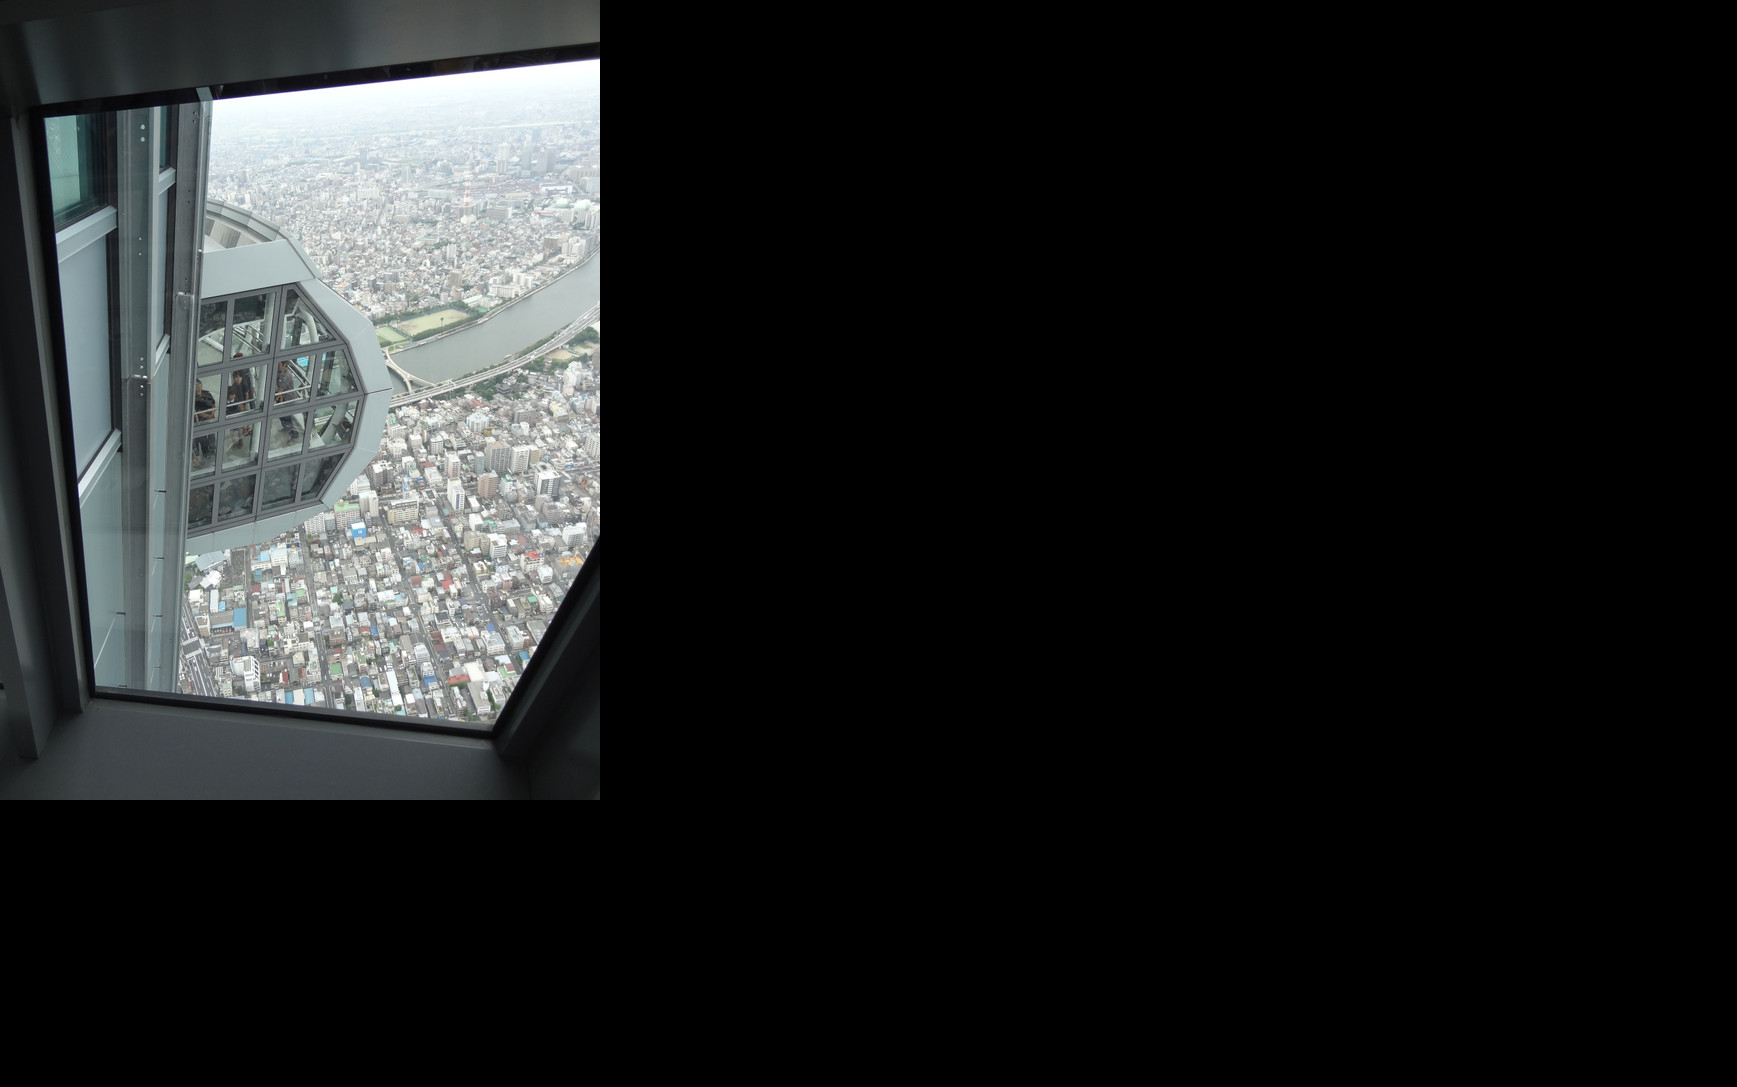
#include "include/core/SkBlurTypes.h"
#include "include/core/SkCanvas.h"
#include "include/core/SkData.h"
#include "include/core/SkFont.h"
#include "include/core/SkFontMgr.h"
#include "include/core/SkImage.h"
#include "include/core/SkMaskFilter.h"
#include "include/core/SkPaint.h"
#include "include/core/SkPathBuilder.h"
#include "include/core/SkTextBlob.h"
#include "include/effects/SkDashPathEffect.h"
#include "include/effects/SkGradientShader.h"
#include "include/utils/SkParsePath.h"

extern sk_sp<SkFontMgr> fontMgr;

static void drawPhoto(SkCanvas* canvas, const char* path, float x, float y, float w, float h) {
    auto image = SkImages::DeferredFromEncodedData(SkData::MakeFromFileName(path));
    canvas->drawImageRect(image, SkRect::MakeXYWH(x, y, w, h), SkSamplingOptions());
}

void draw(SkCanvas* canvas) {
    SkPaint paint;
    paint.setAntiAlias(true);
    canvas->clear(0xFF000000);
    drawPhoto(canvas, "assets/img1.png", 0, 0, 600, 800);
}
